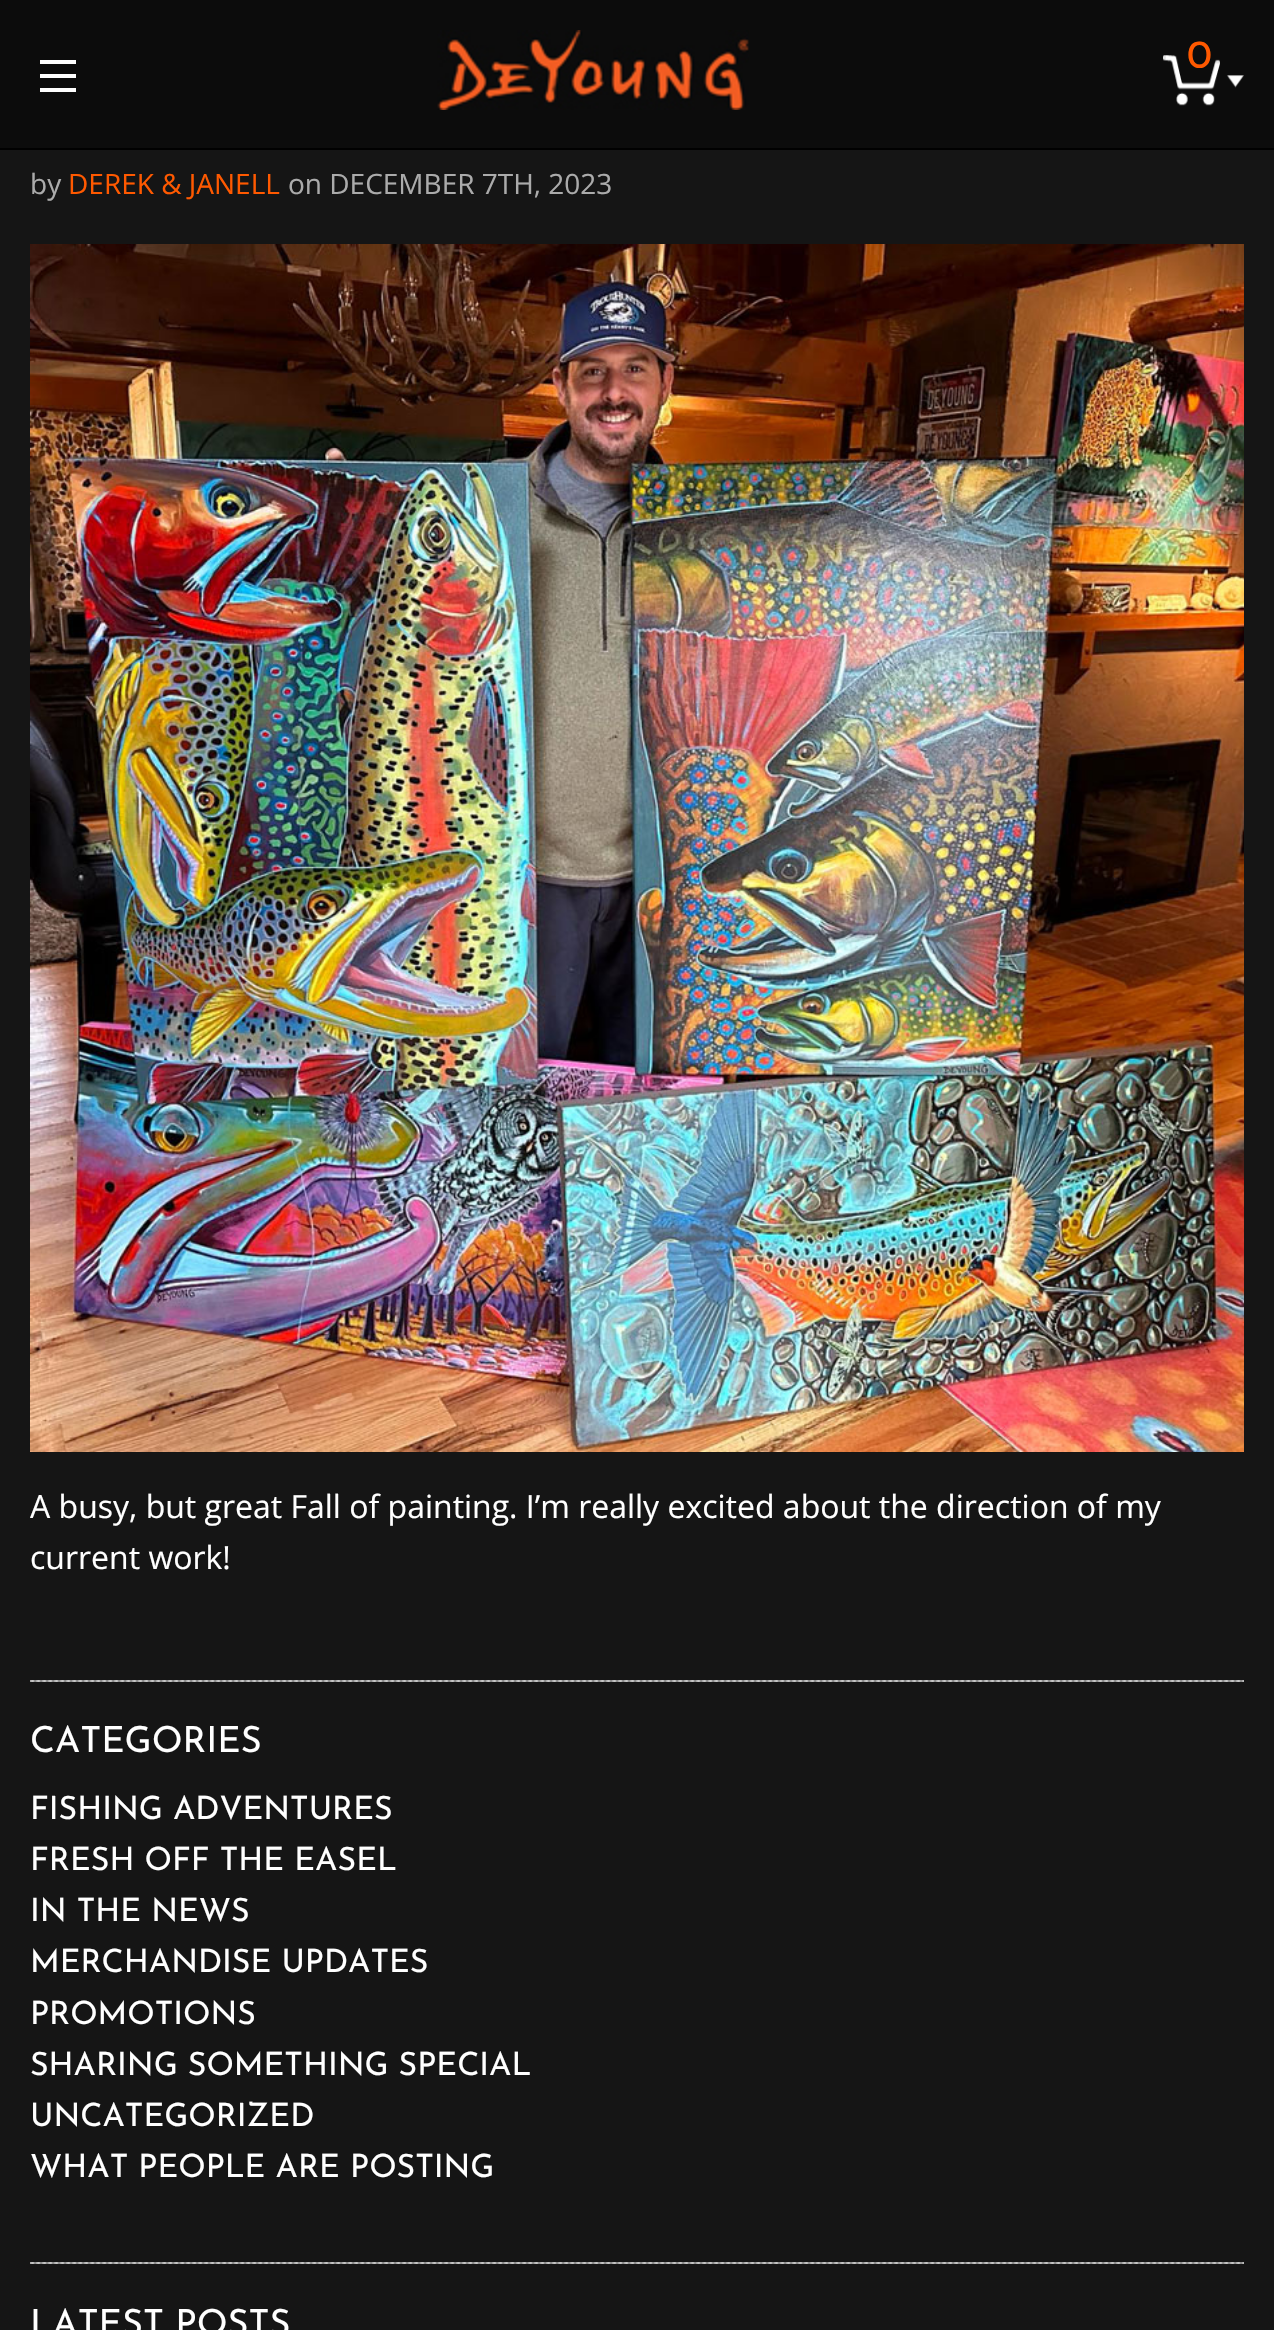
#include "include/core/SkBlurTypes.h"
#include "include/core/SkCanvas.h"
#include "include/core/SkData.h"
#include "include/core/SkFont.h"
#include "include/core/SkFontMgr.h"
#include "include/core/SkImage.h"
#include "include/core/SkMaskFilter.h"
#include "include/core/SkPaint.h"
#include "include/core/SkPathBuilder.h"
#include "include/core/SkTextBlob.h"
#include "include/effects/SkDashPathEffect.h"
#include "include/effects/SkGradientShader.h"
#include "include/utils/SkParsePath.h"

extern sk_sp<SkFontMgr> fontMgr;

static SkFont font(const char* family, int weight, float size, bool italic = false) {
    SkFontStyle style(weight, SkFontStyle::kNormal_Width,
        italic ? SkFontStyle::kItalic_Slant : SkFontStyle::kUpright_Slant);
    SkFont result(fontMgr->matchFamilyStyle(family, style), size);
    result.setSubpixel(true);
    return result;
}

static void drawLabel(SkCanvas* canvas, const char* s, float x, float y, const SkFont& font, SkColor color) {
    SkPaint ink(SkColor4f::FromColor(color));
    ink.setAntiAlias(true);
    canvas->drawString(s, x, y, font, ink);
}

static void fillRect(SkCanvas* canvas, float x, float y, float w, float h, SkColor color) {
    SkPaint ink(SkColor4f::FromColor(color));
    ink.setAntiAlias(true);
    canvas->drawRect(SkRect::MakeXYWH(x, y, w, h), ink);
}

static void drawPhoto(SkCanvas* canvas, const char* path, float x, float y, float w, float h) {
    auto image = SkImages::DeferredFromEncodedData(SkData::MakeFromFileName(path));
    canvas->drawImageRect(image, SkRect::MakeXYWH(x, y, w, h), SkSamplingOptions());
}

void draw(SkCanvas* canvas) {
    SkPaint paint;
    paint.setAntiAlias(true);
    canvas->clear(0xFF151515);
    fillRect(canvas, 0, 0, 1274, 148, 0xFF0C0C0C);
    fillRect(canvas, 40, 88, 36, 4, 0xFFFFFFFF);
    fillRect(canvas, 40, 74, 36, 4, 0xFFFFFFFF);
    fillRect(canvas, 40, 60, 36, 4, 0xFFFFFFFF);
    drawPhoto(canvas, "assets/img1.png", 437, 30, 312, 80);
    drawPhoto(canvas, "assets/img2.png", 1163, 55, 81, 51);
    SkFont font1 = font("Josefin Sans", 100, 40);
    drawLabel(canvas, "0", 1187, 68, font1, 0xFFFF5900);
    fillRect(canvas, 0, 148, 1274, 2, 0xFF010101);
    SkFont font2 = font("Open Sans", 400, 28);
    drawLabel(canvas, "by", 30, 194, font2, 0xFFABABAB);
    drawLabel(canvas, "DEREK & JANELL", 68, 194, font2, 0xFFFF5900);
    drawLabel(canvas, "on DECEMBER 7TH, 2023", 288, 194, font2, 0xFFABABAB);
    drawPhoto(canvas, "assets/img3.png", 30, 244, 1214, 1208);
    SkFont font3 = font("Open Sans", 400, 32);
    drawLabel(canvas, "A busy, but great Fall of painting. I’m really excited about the direction of my", 30, 1518, font3, 0xFFFFFFFF);
    drawLabel(canvas, "current work!", 30, 1569, font3, 0xFFFFFFFF);
    drawPhoto(canvas, "assets/img4.png", 30, 1680, 1214, 2);
    SkFont font4 = font("Josefin Sans", 100, 36);
    drawLabel(canvas, "CATEGORIES", 30, 1752, font4, 0xFFFFFFFF);
    SkFont font5 = font("Josefin Sans", 100, 32);
    drawLabel(canvas, "FISHING ADVENTURES", 30, 1819, font5, 0xFFFFFFFF);
    drawLabel(canvas, "FRESH OFF THE EASEL", 30, 1870, font5, 0xFFFFFFFF);
    drawLabel(canvas, "IN THE NEWS", 30, 1921, font5, 0xFFFFFFFF);
    drawLabel(canvas, "MERCHANDISE UPDATES", 30, 1972, font5, 0xFFFFFFFF);
    drawLabel(canvas, "PROMOTIONS", 30, 2024, font5, 0xFFFFFFFF);
    drawLabel(canvas, "SHARING SOMETHING SPECIAL", 30, 2075, font5, 0xFFFFFFFF);
    drawLabel(canvas, "UNCATEGORIZED", 30, 2126, font5, 0xFFFFFFFF);
    drawLabel(canvas, "WHAT PEOPLE ARE POSTING", 30, 2177, font5, 0xFFFFFFFF);
    drawPhoto(canvas, "assets/img4.png", 30, 2262, 1214, 2);
    drawLabel(canvas, "LATEST POSTS", 30, 2335, font4, 0xFFFFFFFF);
}
